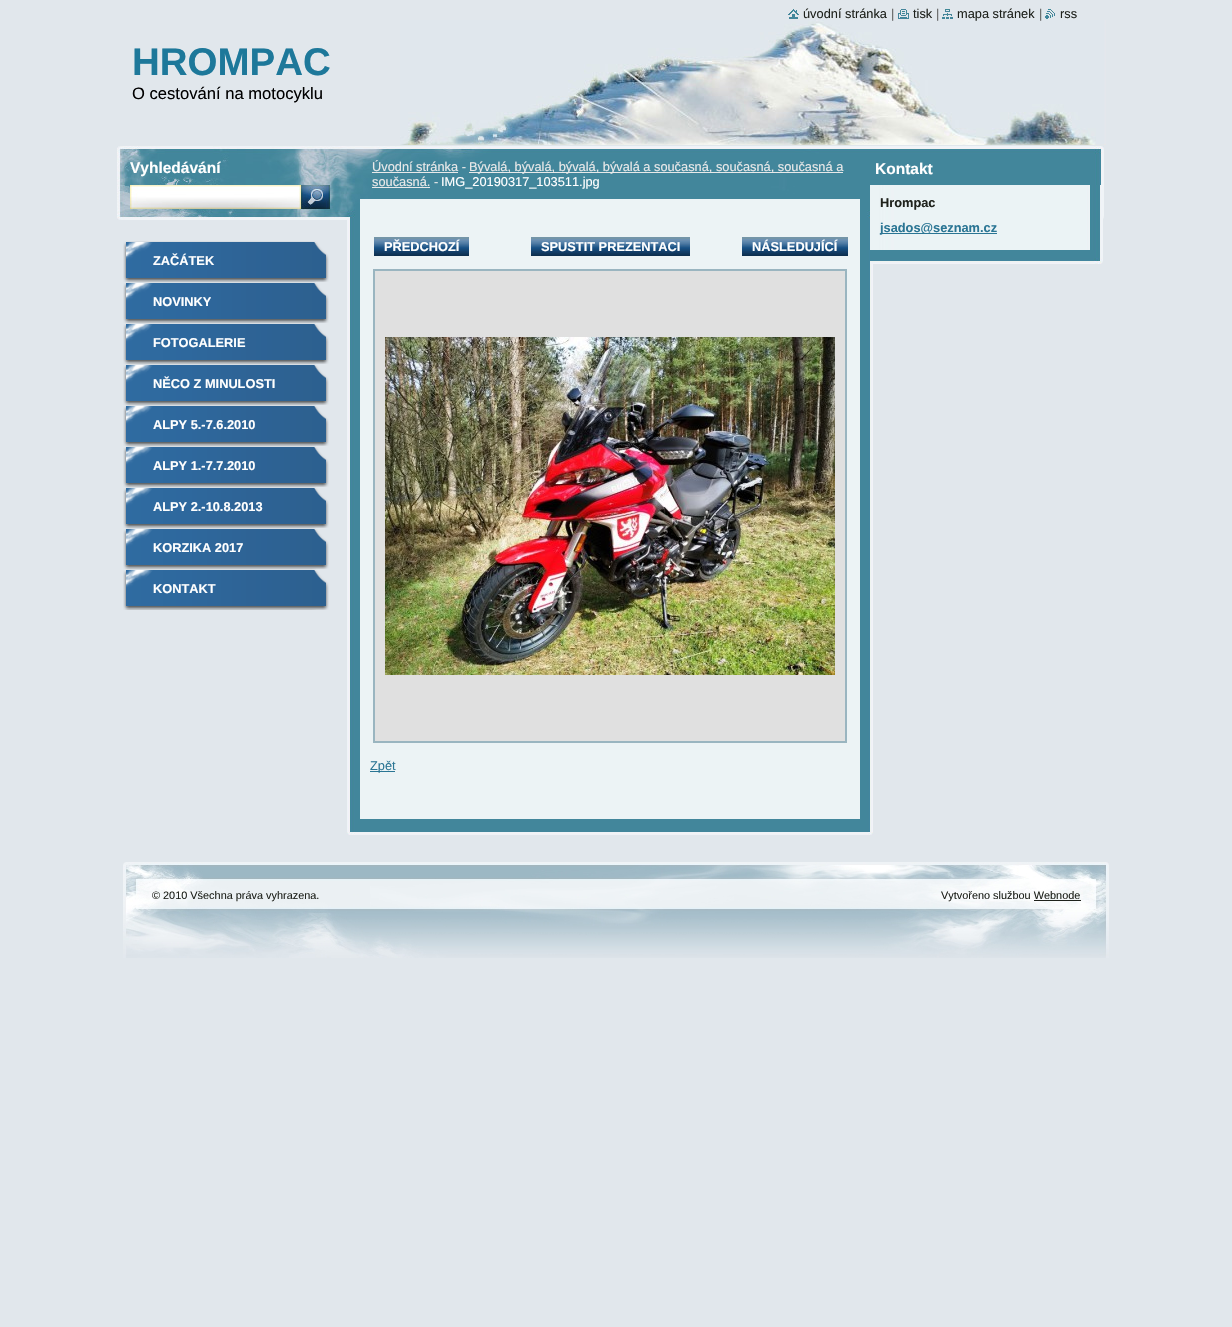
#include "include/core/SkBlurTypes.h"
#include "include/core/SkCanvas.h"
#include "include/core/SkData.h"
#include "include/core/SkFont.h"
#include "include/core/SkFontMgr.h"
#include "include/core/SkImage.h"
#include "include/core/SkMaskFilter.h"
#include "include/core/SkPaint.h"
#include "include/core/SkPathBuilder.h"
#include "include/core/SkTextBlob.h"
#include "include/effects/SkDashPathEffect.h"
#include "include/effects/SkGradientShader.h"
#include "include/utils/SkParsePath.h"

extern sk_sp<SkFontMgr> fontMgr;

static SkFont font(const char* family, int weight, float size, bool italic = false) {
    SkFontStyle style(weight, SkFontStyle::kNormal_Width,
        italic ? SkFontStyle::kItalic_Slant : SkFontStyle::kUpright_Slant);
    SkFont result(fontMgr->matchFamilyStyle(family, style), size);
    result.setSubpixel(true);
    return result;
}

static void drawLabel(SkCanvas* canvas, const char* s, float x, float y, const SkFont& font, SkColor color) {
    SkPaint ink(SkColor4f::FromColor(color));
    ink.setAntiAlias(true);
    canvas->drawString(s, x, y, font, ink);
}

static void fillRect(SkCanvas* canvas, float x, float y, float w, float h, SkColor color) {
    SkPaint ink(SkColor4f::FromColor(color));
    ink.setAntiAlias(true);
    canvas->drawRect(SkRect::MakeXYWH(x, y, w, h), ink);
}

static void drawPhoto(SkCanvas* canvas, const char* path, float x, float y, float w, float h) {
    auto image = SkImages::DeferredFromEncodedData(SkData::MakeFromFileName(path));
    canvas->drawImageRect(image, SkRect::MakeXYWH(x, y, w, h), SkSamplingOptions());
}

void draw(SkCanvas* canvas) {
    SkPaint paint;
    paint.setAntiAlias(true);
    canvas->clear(0xFFE1E7EC);
    drawPhoto(canvas, "assets/img1.png", 788, 9, 11, 10);
    SkFont font1 = font("Liberation Sans", 400, 12.8f);
    drawLabel(canvas, "úvodní stránka", 803, 18, font1, 0xFF1F221C);
    drawPhoto(canvas, "assets/img5.png", 400, 20, 706, 125);
    drawLabel(canvas, "|", 891, 18, font1, 0xFF646464);
    drawPhoto(canvas, "assets/img2.png", 898, 9, 11, 10);
    drawLabel(canvas, "tisk", 913, 18, font1, 0xFF1F221C);
    drawLabel(canvas, "|", 936, 18, font1, 0xFF646464);
    drawPhoto(canvas, "assets/img3.png", 942, 9, 11, 10);
    drawLabel(canvas, "mapa stránek", 957, 18, font1, 0xFF1F221C);
    drawLabel(canvas, "|", 1039, 18, font1, 0xFF646464);
    drawPhoto(canvas, "assets/img4.png", 1045, 9, 10, 10);
    drawLabel(canvas, "rss", 1060, 18, font1, 0xFF1F221C);
    SkFont font2 = font("Liberation Sans", 700, 38.5f);
    drawLabel(canvas, "HROMPAC", 132, 75, font2, 0xFF1D789A);
    SkFont font3 = font("Liberation Sans", 400, 16.6f);
    drawLabel(canvas, "O cestování na motocyklu", 132, 99, font3, 0xFF000000);
    drawPhoto(canvas, "assets/img6.png", 117, 146, 987, 74);
    SkFont font4 = font("Liberation Sans", 700, 15.5f);
    drawLabel(canvas, "Vyhledávání", 130, 173, font4, 0xFFFFFFFF);
    drawPhoto(canvas, "assets/img7.png", 130, 185, 171, 24);
    drawPhoto(canvas, "assets/img8.png", 301, 185, 29, 24);
    drawPhoto(canvas, "assets/img9.png", 347, 218, 526, 614);
    drawPhoto(canvas, "assets/img10.png", 347, 146, 526, 72);
    drawLabel(canvas, "Úvodní stránka -", 372, 171, font1, 0xFFE9E9E9);
    fillRect(canvas, 372, 172, 86, 1, 0xFFE9E9E9);
    fillRect(canvas, 469, 172, 374, 1, 0xFFE9E9E9);
    drawLabel(canvas, "Bývalá, bývalá, bývalá, bývalá a současná, současná, současná a", 469, 171, font1, 0xFFE9E9E9);
    drawLabel(canvas, "současná. -", 372, 186, font1, 0xFFE9E9E9);
    fillRect(canvas, 372, 187, 58, 1, 0xFFE9E9E9);
    drawLabel(canvas, "IMG_20190317_103511.jpg", 441, 186, font1, 0xFFFFFFFF);
    fillRect(canvas, 360, 199, 500, 620, 0xFFECF3F5);
    drawPhoto(canvas, "assets/img11.png", 374, 237, 95, 19);
    SkFont font5 = font("Liberation Sans", 700, 12.8f);
    drawLabel(canvas, "PŘEDCHOZÍ", 384, 251, font5, 0xFFFFFFFF);
    drawPhoto(canvas, "assets/img12.png", 531, 237, 159, 19);
    drawLabel(canvas, "SPUSTIT PREZENTACI", 541, 251, font5, 0xFFFFFFFF);
    drawPhoto(canvas, "assets/img13.png", 742, 237, 106, 19);
    drawLabel(canvas, "NÁSLEDUJÍCÍ", 752, 251, font5, 0xFFFFFFFF);
    paint.setColor(0xFFE0E0E0);
    canvas->drawRect(SkRect::MakeXYWH(374, 270, 472, 472), paint);
    paint.setStroke(true);
    paint.setStrokeWidth(2);
    paint.setColor(0xFF9AB5C0);
    canvas->drawRect(SkRect::MakeXYWH(374, 270, 472, 472), paint);
    drawPhoto(canvas, "assets/img14.png", 385, 337, 450, 338);
    fillRect(canvas, 370, 771, 25, 1, 0xFF2A7594);
    drawLabel(canvas, "Zpět", 370, 770, font1, 0xFF2A7594);
    drawPhoto(canvas, "assets/img15.png", 347, 832, 526, 3);
    drawLabel(canvas, "Kontakt", 875, 174, font4, 0xFFFFFFFF);
    drawPhoto(canvas, "assets/img16.png", 870, 185, 233, 65);
    drawLabel(canvas, "Hrompac", 880, 207, font5, 0xFF1F221C);
    fillRect(canvas, 880, 233, 117, 1, 0xFF2A7594);
    drawLabel(canvas, "jsados@seznam.cz", 880, 232, font5, 0xFF2A7594);
    drawPhoto(canvas, "assets/img17.png", 870, 250, 233, 14);
    drawPhoto(canvas, "assets/img18.png", 123, 241, 206, 41);
    drawLabel(canvas, "ZAČÁTEK", 153, 265, font5, 0xFFFFFFFF);
    drawPhoto(canvas, "assets/img18.png", 123, 282, 206, 41);
    drawLabel(canvas, "NOVINKY", 153, 306, font5, 0xFFFFFFFF);
    drawPhoto(canvas, "assets/img18.png", 123, 323, 206, 41);
    drawLabel(canvas, "FOTOGALERIE", 153, 347, font5, 0xFFFFFFFF);
    drawPhoto(canvas, "assets/img18.png", 123, 364, 206, 41);
    drawLabel(canvas, "NĚCO Z MINULOSTI", 153, 388, font5, 0xFFFFFFFF);
    drawPhoto(canvas, "assets/img18.png", 123, 405, 206, 41);
    drawLabel(canvas, "ALPY 5.-7.6.2010", 153, 429, font5, 0xFFFFFFFF);
    drawPhoto(canvas, "assets/img18.png", 123, 446, 206, 41);
    drawLabel(canvas, "ALPY 1.-7.7.2010", 153, 470, font5, 0xFFFFFFFF);
    drawPhoto(canvas, "assets/img18.png", 123, 487, 206, 41);
    drawLabel(canvas, "ALPY 2.-10.8.2013", 153, 511, font5, 0xFFFFFFFF);
    drawPhoto(canvas, "assets/img18.png", 123, 528, 206, 41);
    drawLabel(canvas, "KORZIKA 2017", 153, 552, font5, 0xFFFFFFFF);
    drawPhoto(canvas, "assets/img18.png", 123, 569, 206, 41);
    drawLabel(canvas, "KONTAKT", 153, 593, font5, 0xFFFFFFFF);
    drawPhoto(canvas, "assets/img19.png", 123, 862, 986, 96);
    canvas->save();
    canvas->clipRect(SkRect::MakeXYWH(152, 888, 450, 16));
    SkFont font6 = font("Liberation Sans", 400, 10.9f);
    drawLabel(canvas, "© 2010 Všechna práva vyhrazena.", 152, 899, font6, 0xFF1F221C);
    canvas->restore();
    drawLabel(canvas, "Vytvořeno službou Webnode", 941, 899, font6, 0xFF1F221C);
    fillRect(canvas, 1034, 900, 47, 1, 0xFF1F221C);
}
